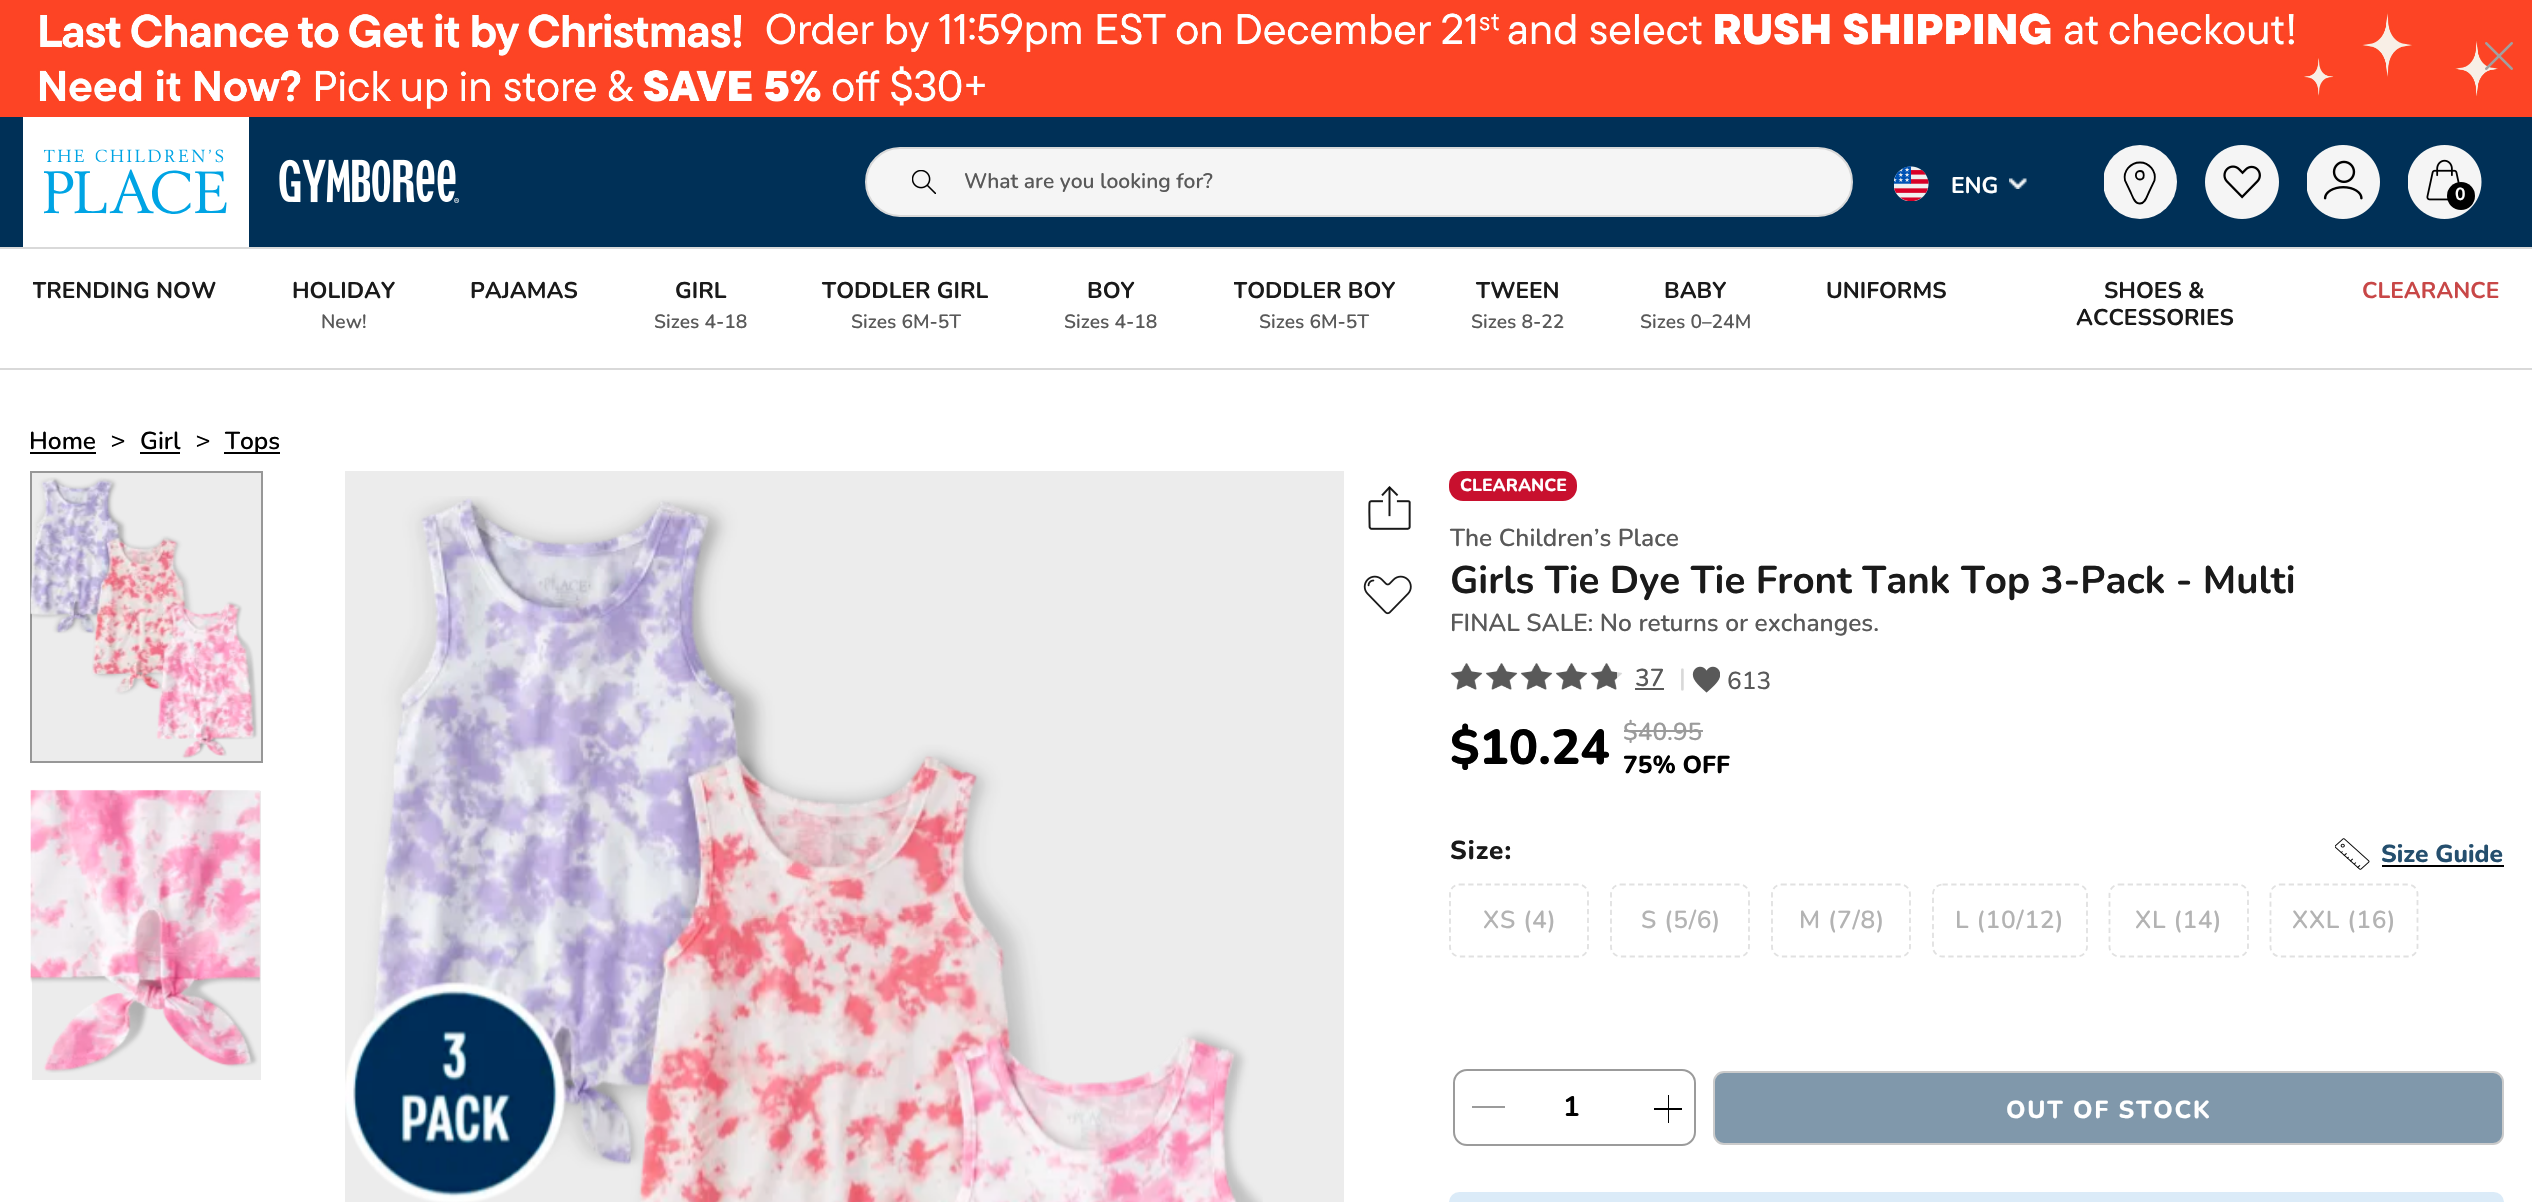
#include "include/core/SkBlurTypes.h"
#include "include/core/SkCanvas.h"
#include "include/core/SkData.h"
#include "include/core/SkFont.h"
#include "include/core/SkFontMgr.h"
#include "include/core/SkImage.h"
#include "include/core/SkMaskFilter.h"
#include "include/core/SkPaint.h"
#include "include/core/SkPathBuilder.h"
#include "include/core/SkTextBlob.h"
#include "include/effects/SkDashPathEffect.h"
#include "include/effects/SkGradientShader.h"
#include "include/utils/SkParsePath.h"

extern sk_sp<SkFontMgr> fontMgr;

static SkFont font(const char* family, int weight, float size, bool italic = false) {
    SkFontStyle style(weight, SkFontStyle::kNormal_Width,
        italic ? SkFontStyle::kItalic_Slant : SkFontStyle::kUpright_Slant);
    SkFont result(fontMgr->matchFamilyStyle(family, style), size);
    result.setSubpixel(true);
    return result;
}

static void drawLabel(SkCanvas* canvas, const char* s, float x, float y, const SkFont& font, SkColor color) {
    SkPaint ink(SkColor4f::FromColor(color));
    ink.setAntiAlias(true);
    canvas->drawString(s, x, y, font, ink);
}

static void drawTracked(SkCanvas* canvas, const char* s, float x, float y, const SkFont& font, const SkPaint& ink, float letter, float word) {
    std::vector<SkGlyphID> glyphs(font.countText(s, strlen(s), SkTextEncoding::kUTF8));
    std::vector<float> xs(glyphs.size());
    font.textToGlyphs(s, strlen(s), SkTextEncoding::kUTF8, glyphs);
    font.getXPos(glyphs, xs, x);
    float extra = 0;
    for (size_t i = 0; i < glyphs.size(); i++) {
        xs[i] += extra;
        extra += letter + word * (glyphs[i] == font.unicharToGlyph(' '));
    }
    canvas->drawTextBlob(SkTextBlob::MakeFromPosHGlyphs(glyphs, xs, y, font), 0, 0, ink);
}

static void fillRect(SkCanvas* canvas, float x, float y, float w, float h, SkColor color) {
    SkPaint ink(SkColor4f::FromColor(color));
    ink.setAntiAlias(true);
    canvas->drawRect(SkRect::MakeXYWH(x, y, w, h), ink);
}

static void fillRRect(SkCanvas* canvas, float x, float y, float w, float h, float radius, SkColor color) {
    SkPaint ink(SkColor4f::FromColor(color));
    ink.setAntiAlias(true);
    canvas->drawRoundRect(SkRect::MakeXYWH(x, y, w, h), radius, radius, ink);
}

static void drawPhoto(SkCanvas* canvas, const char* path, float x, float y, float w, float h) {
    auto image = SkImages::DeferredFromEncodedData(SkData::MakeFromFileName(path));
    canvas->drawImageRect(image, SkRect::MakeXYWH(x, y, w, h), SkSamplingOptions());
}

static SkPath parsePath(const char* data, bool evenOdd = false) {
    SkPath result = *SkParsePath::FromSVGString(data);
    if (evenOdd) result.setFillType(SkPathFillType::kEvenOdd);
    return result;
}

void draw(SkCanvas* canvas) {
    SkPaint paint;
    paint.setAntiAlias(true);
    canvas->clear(0xFFFFFFFF);
    drawPhoto(canvas, "assets/img1.png", 0, 0, 2532, 117);
    drawPhoto(canvas, "assets/img2.png", 2485, 42, 28, 28);
    fillRect(canvas, 0, 117, 2532, 130, 0xFF003057);
    fillRect(canvas, 0, 247, 2532, 2, 0xFFD9D9D9);
    fillRect(canvas, 23, 117, 226, 130, 0xFFFFFFFF);
    drawPhoto(canvas, "assets/img3.png", 44, 149, 183, 65);
    drawPhoto(canvas, "assets/img4.png", 279, 159, 181, 44);
    paint.setColor(0xFFF5F5F5);
    canvas->drawRoundRect(SkRect::MakeXYWH(866, 148, 986, 68), 34, 34, paint);
    paint.setStroke(true);
    paint.setStrokeWidth(2);
    paint.setColor(0xFFD9D9D9);
    canvas->drawRoundRect(SkRect::MakeXYWH(866, 148, 986, 68), 34, 34, paint);
    drawPhoto(canvas, "assets/img5.png", 912, 170, 24, 24);
    SkFont font1 = font("Nunito", 600, 21);
    drawLabel(canvas, "What are you looking for?", 964, 188, font1, 0xFF595959);
    drawPhoto(canvas, "assets/img6.png", 1894, 166, 35, 35);
    SkFont font2 = font("Nunito", 700, 22.75f);
    drawLabel(canvas, "ENG", 1951, 193, font2, 0xFFFFFFFF);
    drawPhoto(canvas, "assets/img7.png", 2009, 178, 18, 11);
    canvas->save();
    canvas->clipRect(SkRect::MakeXYWH(2104, 145, 73, 74));
    paint.setStroke(false);
    paint.setColor(0xFFF5F5F5);
    canvas->drawCircle(2140, 182, 37, paint);
    canvas->restore();
    paint.setStroke(true);
    paint.setStrokeWidth(1.8f);
    paint.setColor(0xFF000000);
    canvas->drawPath(parsePath("M2140 162.5C2149 162.5 2156.5 171 2154.5 180.5L2149 192C2147 196 2145.5 203.5 2140 203.5C2134 203.5 2132.5 196 2130.5 192L2125 180.5C2123 171 2130.5 162.5 2140 162.5ZM2140 179.5C2145 179.5 2145 171 2140 171C2134.5 171 2134.5 179.5 2140 179.5Z"), paint);
    drawPhoto(canvas, "assets/img8.png", 2205, 145, 74, 74);
    drawPhoto(canvas, "assets/img9.png", 2307, 145, 73, 74);
    drawPhoto(canvas, "assets/img10.png", 2408, 145, 74, 74);
    paint.setStroke(false);
    canvas->drawCircle(2461, 196, 14, paint);
    SkFont font3 = font("Nunito", 700, 17.5f);
    drawLabel(canvas, "0", 2455, 200, font3, 0xFFFFFFFF);
    fillRect(canvas, 0, 368, 2532, 2, 0xFFD9D9D9);
    canvas->save();
    canvas->clipRect(SkRect::MakeXYWH(33, 280, 184, 25));
    drawLabel(canvas, "TRENDING NOW", 32, 298, font2, 0xFF1A1A1A);
    canvas->restore();
    drawLabel(canvas, "HOLIDAY", 292, 298, font2, 0xFF1A1A1A);
    SkFont font4 = font("Nunito", 600, 19.25f);
    drawLabel(canvas, "New!", 321, 328, font4, 0xFF595959);
    drawLabel(canvas, "PAJAMAS", 470, 298, font2, 0xFF1A1A1A);
    drawLabel(canvas, "GIRL", 675, 298, font2, 0xFF1A1A1A);
    drawLabel(canvas, "Sizes 4-18", 654, 328, font4, 0xFF595959);
    drawLabel(canvas, "TODDLER GIRL", 822, 298, font2, 0xFF1A1A1A);
    drawLabel(canvas, "Sizes 6M-5T", 851, 328, font4, 0xFF595959);
    drawLabel(canvas, "BOY", 1087, 298, font2, 0xFF1A1A1A);
    drawLabel(canvas, "Sizes 4-18", 1064, 328, font4, 0xFF595959);
    canvas->save();
    canvas->clipRect(SkRect::MakeXYWH(1234, 280, 161, 25));
    drawLabel(canvas, "TODDLER BOY", 1233, 298, font2, 0xFF1A1A1A);
    canvas->restore();
    drawLabel(canvas, "Sizes 6M-5T", 1259, 328, font4, 0xFF595959);
    drawLabel(canvas, "TWEEN", 1476, 298, font2, 0xFF1A1A1A);
    drawLabel(canvas, "Sizes 8-22", 1471, 328, font4, 0xFF595959);
    drawLabel(canvas, "BABY", 1664, 298, font2, 0xFF1A1A1A);
    drawLabel(canvas, "Sizes 0–24M", 1640, 328, font4, 0xFF595959);
    drawLabel(canvas, "UNIFORMS", 1826, 298, font2, 0xFF1A1A1A);
    drawLabel(canvas, "SHOES &", 2104, 298, font2, 0xFF1A1A1A);
    drawLabel(canvas, "ACCESSORIES", 2076, 325, font2, 0xFF1A1A1A);
    drawLabel(canvas, "CLEARANCE", 2362, 298, font2, 0xFFC84747);
    SkFont font5 = font("Nunito", 600, 24.5f);
    drawLabel(canvas, "Home", 29, 449, font5, 0xFF000000);
    fillRect(canvas, 30, 452, 66, 2, 0xFF000000);
    SkFont font6 = font("Montserrat", 400, 28);
    drawLabel(canvas, ">", 110, 451, font6, 0xFF000000);
    drawLabel(canvas, "Girl", 140, 449, font5, 0xFF000000);
    fillRect(canvas, 140, 452, 40, 2, 0xFF000000);
    drawLabel(canvas, ">", 195, 451, font6, 0xFF000000);
    fillRect(canvas, 224, 452, 56, 2, 0xFF000000);
    drawLabel(canvas, "Tops", 225, 449, font5, 0xFF000000);
    paint.setStroke(true);
    paint.setStrokeWidth(2);
    paint.setColor(0xFF979797);
    canvas->drawRect(SkRect::MakeXYWH(31, 472, 231, 290), paint);
    fillRect(canvas, 32, 473, 229, 288, 0xFFECECEC);
    drawPhoto(canvas, "assets/img11.png", 30, 477, 228, 282);
    fillRect(canvas, 32, 791, 229, 289, 0xFFECECEC);
    drawPhoto(canvas, "assets/img12.png", 30, 789, 231, 284);
    fillRect(canvas, 345, 471, 999, 731, 0xFFECECEC);
    drawPhoto(canvas, "assets/img13.png", 345, 496, 918, 706);
    drawPhoto(canvas, "assets/img14.png", 1368, 486, 43, 44);
    drawPhoto(canvas, "assets/img15.png", 1363, 575, 49, 40);
    fillRRect(canvas, 1449, 471, 128, 30, 14, 0xFFC8102E);
    SkFont font7 = font("Nunito", 800, 17.5f);
    drawLabel(canvas, "CLEARANCE", 1460, 491, font7, 0xFFFFFFFF);
    drawLabel(canvas, "The Children’s Place", 1450, 546, font5, 0xFF595959);
    SkFont font8 = font("Nunito", 700, 38.5f);
    drawLabel(canvas, "Girls Tie Dye Tie Front Tank Top 3-Pack - Multi", 1450, 593, font8, 0xFF1A1A1A);
    drawLabel(canvas, "FINAL SALE: No returns or exchanges.", 1450, 631, font5, 0xFF595959);
    fillRect(canvas, 1450, 663, 167, 27, 0xFF595959);
    drawPhoto(canvas, "assets/img16.png", 1449, 662, 168, 29);
    fillRect(canvas, 1617, 672, 6, 7, 0xFFD8D8D8);
    drawPhoto(canvas, "assets/img17.png", 1617, 662, 7, 29);
    drawLabel(canvas, "37", 1635, 686, font5, 0xFF595959);
    fillRect(canvas, 1635, 688, 29, 2, 0xFF595959);
    drawLabel(canvas, "|", 1679, 686, font5, 0xFFD8D8D8);
    drawPhoto(canvas, "assets/img18.png", 1692, 666, 28, 27);
    SkFont font9 = font("Nunito", 500, 24.5f);
    drawLabel(canvas, "613", 1727, 689, font9, 0xFF595959);
    SkFont font10 = font("Nunito", 800, 49);
    drawLabel(canvas, "$10.24", 1450, 764, font10, 0xFF000000);
    drawLabel(canvas, "$40.95", 1623, 740, font5, 0xFF9B9B9B);
    fillRect(canvas, 1624, 730, 79, 2, 0xFF9B9B9B);
    SkFont font11 = font("Nunito", 800, 24.5f);
    drawLabel(canvas, "75% OFF", 1623, 773, font11, 0xFF000000);
    SkFont font12 = font("Nunito", 800, 26);
    paint.setStroke(false);
    paint.setColor(0xFF1A1A1A);
    drawTracked(canvas, "Size:", 1450, 859, font12, paint, 1, 0);
    paint.setStroke(true);
    paint.setStrokeWidth(1.8f);
    paint.setColor(0xFFE1E1E1);
    paint.setPathEffect(SkDashPathEffect::Make({{5.25f, 3.5f}}, 0));
    canvas->drawPath(parsePath("M1459.5 884.5H1578.5C1584 884.5 1588 889 1588 894V947C1588 952 1584 956.5 1578.5 956.5H1459.5C1454 956.5 1450 952 1450 947V894C1450 889 1454 884.5 1459.5 884.5Z"), paint);
    paint.setPathEffect(nullptr);
    paint.setStroke(false);
    paint.setColor(0xFFB3B3B3);
    drawTracked(canvas, "XS (4)", 1483, 928, font5, paint, 0.75f, 0);
    paint.setStroke(true);
    paint.setColor(0xFFE1E1E1);
    paint.setPathEffect(SkDashPathEffect::Make({{5.25f, 3.5f}}, 0));
    canvas->drawPath(parsePath("M1620.5 884.5H1739.5C1745 884.5 1749 889 1749 894V947C1749 952 1745 956.5 1739.5 956.5H1620.5C1615 956.5 1611 952 1611 947V894C1611 889 1615 884.5 1620.5 884.5Z"), paint);
    paint.setPathEffect(nullptr);
    paint.setStroke(false);
    paint.setColor(0xFFB3B3B3);
    drawTracked(canvas, "S (5/6)", 1641, 928, font5, paint, 0.75f, 0);
    paint.setStroke(true);
    paint.setColor(0xFFE1E1E1);
    paint.setPathEffect(SkDashPathEffect::Make({{5.25f, 3.5f}}, 0));
    canvas->drawPath(parsePath("M1781.5 884.5H1900.5C1906 884.5 1910 889 1910 894V947C1910 952 1906 956.5 1900.5 956.5H1781.5C1776 956.5 1772 952 1772 947V894C1772 889 1776 884.5 1781.5 884.5Z"), paint);
    paint.setPathEffect(nullptr);
    paint.setStroke(false);
    paint.setColor(0xFFB3B3B3);
    drawTracked(canvas, "M (7/8)", 1799, 928, font5, paint, 0.75f, 0);
    paint.setStroke(true);
    paint.setColor(0xFFE1E1E1);
    paint.setPathEffect(SkDashPathEffect::Make({{5.25f, 3.5f}}, 0));
    canvas->drawPath(parsePath("M1942.5 884.5H2077C2082.5 884.5 2087 889 2087 894V947C2087 952 2082.5 956.5 2077 956.5H1942.5C1937 956.5 1933 952 1933 947V894C1933 889 1937 884.5 1942.5 884.5Z"), paint);
    paint.setPathEffect(nullptr);
    paint.setStroke(false);
    paint.setColor(0xFFB3B3B3);
    drawTracked(canvas, "L (10/12)", 1955, 928, font5, paint, 0.75f, 0);
    paint.setStroke(true);
    paint.setColor(0xFFE1E1E1);
    paint.setPathEffect(SkDashPathEffect::Make({{5.25f, 3.5f}}, 0));
    canvas->drawPath(parsePath("M2119 884.5H2238C2243.5 884.5 2248 889 2248 894V947C2248 952 2243.5 956.5 2238 956.5H2119C2114 956.5 2109.5 952 2109.5 947V894C2109.5 889 2114 884.5 2119 884.5Z"), paint);
    paint.setPathEffect(nullptr);
    paint.setStroke(false);
    paint.setColor(0xFFB3B3B3);
    drawTracked(canvas, "XL (14)", 2135, 928, font5, paint, 0.75f, 0);
    paint.setStroke(true);
    paint.setColor(0xFFE1E1E1);
    paint.setPathEffect(SkDashPathEffect::Make({{5.25f, 3.5f}}, 0));
    canvas->drawPath(parsePath("M2280 884.5H2408C2413.5 884.5 2417.5 889 2417.5 894V947C2417.5 952 2413.5 956.5 2408 956.5H2280C2275 956.5 2270.5 952 2270.5 947V894C2270.5 889 2275 884.5 2280 884.5Z"), paint);
    paint.setPathEffect(nullptr);
    paint.setStroke(false);
    paint.setColor(0xFFB3B3B3);
    drawTracked(canvas, "XXL (16)", 2292, 928, font5, paint, 0.75f, 0);
    drawPhoto(canvas, "assets/img19.png", 2335, 838, 35, 32);
    drawLabel(canvas, "Size Guide", 2381, 862, font11, 0xFF254F6E);
    fillRect(canvas, 2382, 865, 122, 2, 0xFF000000);
    paint.setStroke(true);
    paint.setStrokeWidth(2);
    paint.setColor(0xFF9B9B9B);
    canvas->drawRoundRect(SkRect::MakeXYWH(1454, 1070, 241, 75), 13, 13, paint);
    fillRect(canvas, 1472, 1106, 33, 2, 0xFF9B9B9B);
    SkFont font13 = font("Nunito", 700, 28);
    drawLabel(canvas, "1", 1563, 1116, font13, 0xFF000000);
    fillRect(canvas, 1668, 1095, 1, 28, 0xFF000000);
    fillRect(canvas, 1654, 1108, 28, 2, 0xFF000000);
    paint.setStroke(false);
    paint.setColor(0xFF8098AB);
    canvas->drawRoundRect(SkRect::MakeXYWH(1714, 1072, 789, 72), 10, 10, paint);
    paint.setStroke(true);
    paint.setColor(0xFFCBCBCB);
    canvas->drawRoundRect(SkRect::MakeXYWH(1714, 1072, 789, 72), 10, 10, paint);
    paint.setStroke(false);
    paint.setColor(0xFFFFFFFF);
    drawTracked(canvas, "OUT OF STOCK", 2006, 1118, font11, paint, 1.75f, 0);
    fillRRect(canvas, 1449, 1192, 1055, 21, 11, 0xFFDBEBF8);
}
